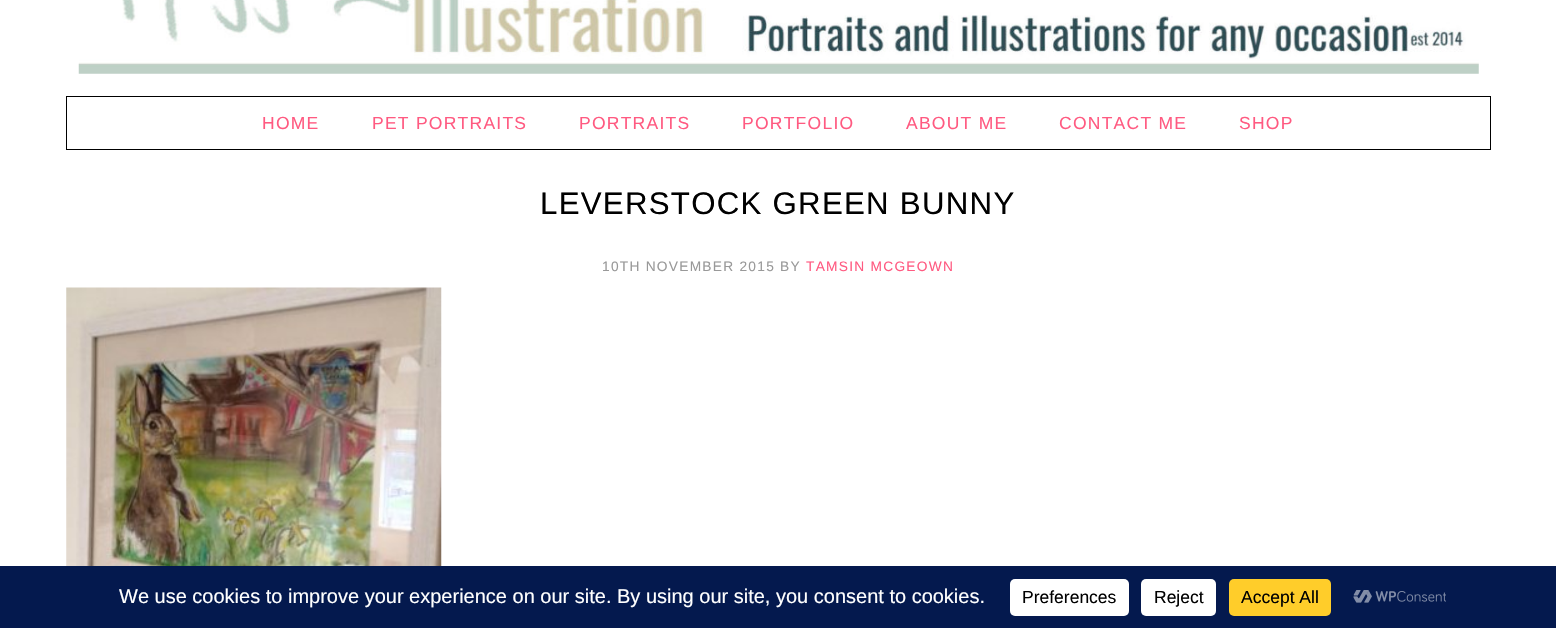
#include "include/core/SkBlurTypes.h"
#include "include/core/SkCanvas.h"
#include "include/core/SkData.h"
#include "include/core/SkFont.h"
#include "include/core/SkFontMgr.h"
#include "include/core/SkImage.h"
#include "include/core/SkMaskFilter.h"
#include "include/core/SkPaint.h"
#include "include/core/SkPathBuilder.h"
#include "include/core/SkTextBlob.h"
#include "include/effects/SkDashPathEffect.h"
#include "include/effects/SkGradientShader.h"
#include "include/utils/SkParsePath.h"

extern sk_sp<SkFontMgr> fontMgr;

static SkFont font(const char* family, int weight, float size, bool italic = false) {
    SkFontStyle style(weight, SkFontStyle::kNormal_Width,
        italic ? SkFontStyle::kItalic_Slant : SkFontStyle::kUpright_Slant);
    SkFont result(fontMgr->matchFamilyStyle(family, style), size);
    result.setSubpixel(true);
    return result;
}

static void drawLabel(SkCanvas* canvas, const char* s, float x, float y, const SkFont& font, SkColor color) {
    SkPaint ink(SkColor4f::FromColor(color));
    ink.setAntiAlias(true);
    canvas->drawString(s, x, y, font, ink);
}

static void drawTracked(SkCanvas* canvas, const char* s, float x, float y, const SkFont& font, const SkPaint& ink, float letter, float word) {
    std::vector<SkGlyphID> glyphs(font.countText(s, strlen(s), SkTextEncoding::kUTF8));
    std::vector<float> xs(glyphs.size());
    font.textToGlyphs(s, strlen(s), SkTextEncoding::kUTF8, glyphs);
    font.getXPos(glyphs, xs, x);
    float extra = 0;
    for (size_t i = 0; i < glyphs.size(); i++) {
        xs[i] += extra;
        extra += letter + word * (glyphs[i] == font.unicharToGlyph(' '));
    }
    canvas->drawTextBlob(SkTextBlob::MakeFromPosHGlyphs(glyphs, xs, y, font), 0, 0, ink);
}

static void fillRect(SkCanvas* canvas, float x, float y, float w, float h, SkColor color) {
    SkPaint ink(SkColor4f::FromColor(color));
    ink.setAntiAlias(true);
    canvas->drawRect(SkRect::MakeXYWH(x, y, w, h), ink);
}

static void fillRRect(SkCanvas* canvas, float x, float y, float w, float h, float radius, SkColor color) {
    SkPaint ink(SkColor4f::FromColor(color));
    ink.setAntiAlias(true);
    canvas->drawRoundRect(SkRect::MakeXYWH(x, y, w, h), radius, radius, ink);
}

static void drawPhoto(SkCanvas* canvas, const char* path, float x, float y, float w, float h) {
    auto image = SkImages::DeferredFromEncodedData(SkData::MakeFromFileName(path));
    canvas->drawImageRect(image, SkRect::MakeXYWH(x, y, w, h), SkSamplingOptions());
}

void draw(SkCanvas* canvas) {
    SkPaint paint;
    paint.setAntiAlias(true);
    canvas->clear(0xFFFFFFFF);
    drawPhoto(canvas, "assets/img1.png", 78, 0, 1401, 74);
    paint.setStroke(true);
    paint.setStrokeWidth(1);
    paint.setColor(0xFF000000);
    canvas->drawRect(SkRect::MakeXYWH(66.5f, 96.5f, 1424, 53), paint);
    SkFont font1 = font("Liberation Sans", 400, 17.5f);
    paint.setStroke(false);
    paint.setColor(0xFFFF5A81);
    drawTracked(canvas, "HOME", 262, 129, font1, paint, 1.25f, 0);
    drawTracked(canvas, "PET PORTRAITS", 372, 129, font1, paint, 1.25f, 0);
    drawTracked(canvas, "PORTRAITS", 579, 129, font1, paint, 1.25f, 0);
    drawTracked(canvas, "PORTFOLIO", 742, 129, font1, paint, 1.25f, 0);
    drawTracked(canvas, "ABOUT ME", 906, 129, font1, paint, 1.25f, 0);
    drawTracked(canvas, "CONTACT ME", 1059, 129, font1, paint, 1.25f, 0);
    drawTracked(canvas, "SHOP", 1239, 129, font1, paint, 1.25f, 0);
    SkFont font2 = font("Liberation Sans", 400, 31.25f);
    paint.setColor(0xFF000000);
    drawTracked(canvas, "LEVERSTOCK GREEN BUNNY", 540, 214, font2, paint, 1.25f, 0);
    SkFont font3 = font("Liberation Sans", 400, 13.75f);
    paint.setColor(0xFF999999);
    drawTracked(canvas, "10TH NOVEMBER 2015 BY", 602, 271, font3, paint, 1.25f, 0);
    paint.setColor(0xFFFF5A81);
    drawTracked(canvas, "TAMSIN MCGEOWN", 806, 271, font3, paint, 1.25f, 0);
    drawPhoto(canvas, "assets/img2.png", 66, 287, 376, 279);
    fillRect(canvas, 0, 566, 1556, 62, 0xFF04194E);
    SkFont font4 = font("Liberation Sans", 400, 20);
    drawLabel(canvas, "We use cookies to improve your experience on our site. By using our site, you consent to cookies.", 119, 603, font4, 0xFFFFFFFF);
    fillRRect(canvas, 1010, 579, 119, 37, 5, 0xFFFFFFFF);
    drawLabel(canvas, "Preferences", 1022, 603, font1, 0xFF000000);
    fillRRect(canvas, 1141, 579, 75, 37, 5, 0xFFFFFFFF);
    drawLabel(canvas, "Reject", 1154, 603, font1, 0xFF000000);
    fillRRect(canvas, 1229, 579, 102, 37, 5, 0xFFFFCD2A);
    drawLabel(canvas, "Accept All", 1241, 603, font1, 0xFF000000);
    drawPhoto(canvas, "assets/img3.png", 1353, 590, 93, 13);
}
